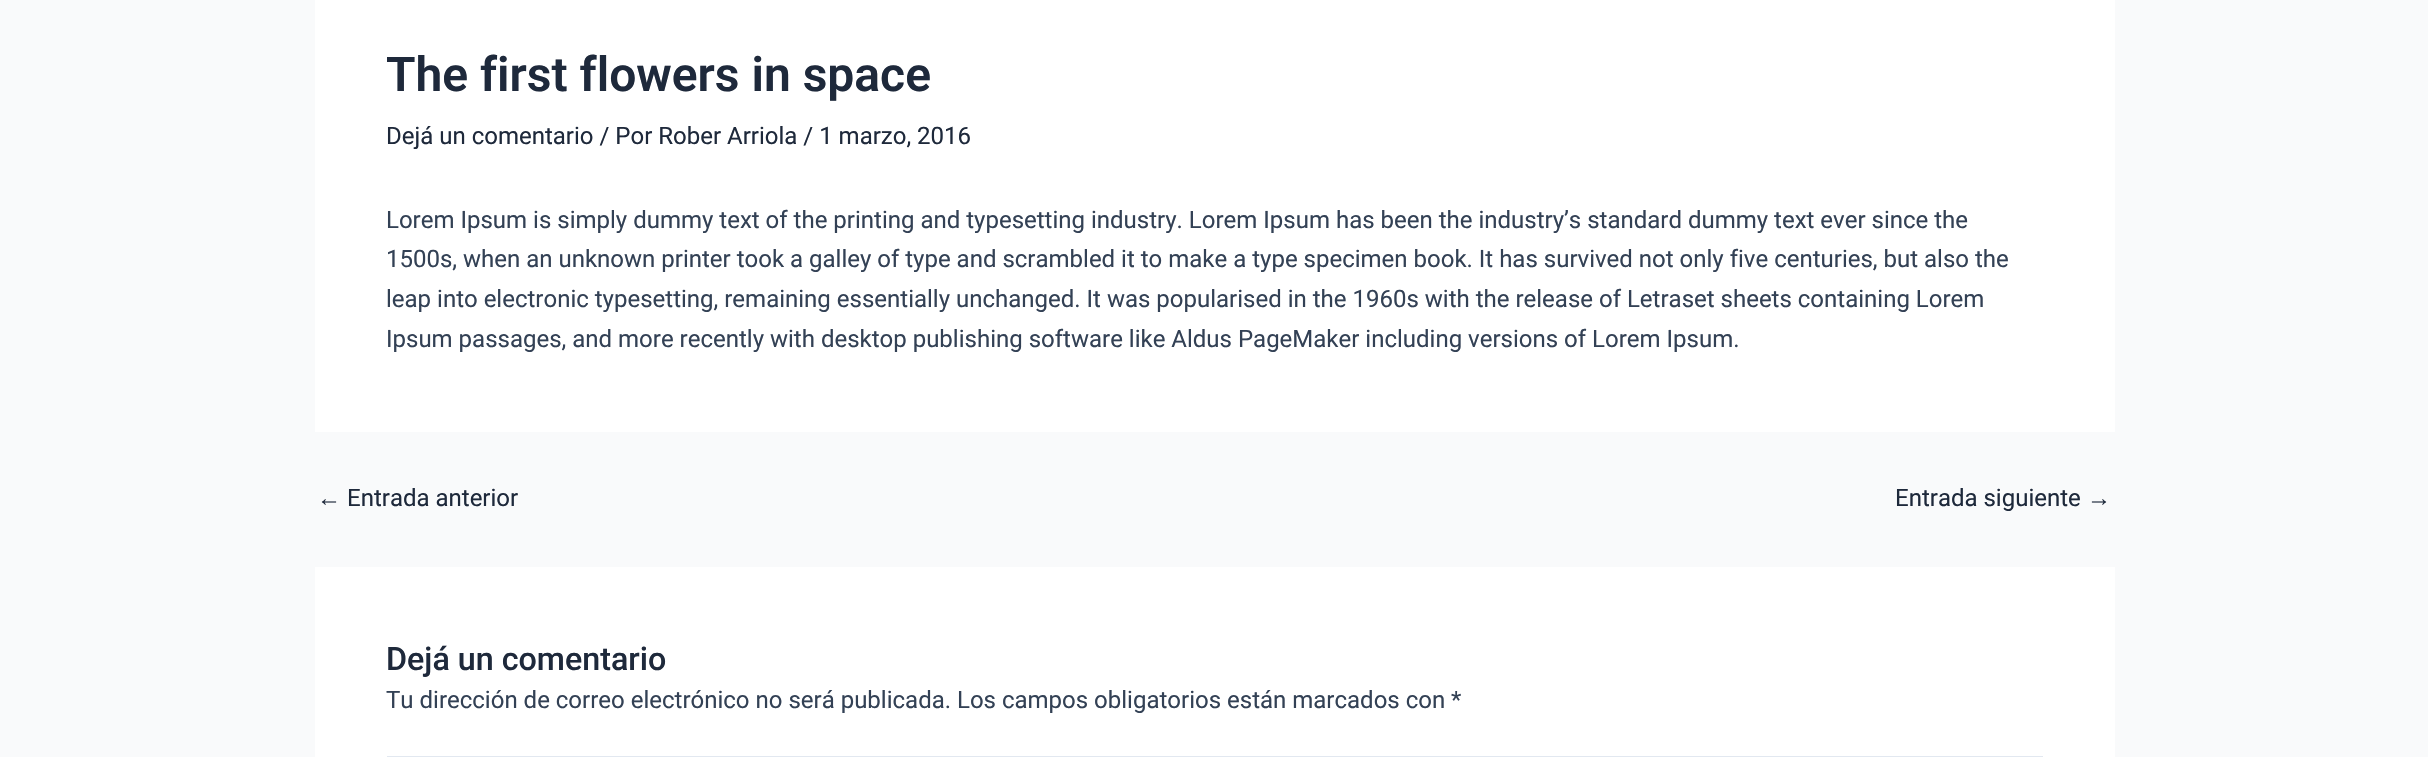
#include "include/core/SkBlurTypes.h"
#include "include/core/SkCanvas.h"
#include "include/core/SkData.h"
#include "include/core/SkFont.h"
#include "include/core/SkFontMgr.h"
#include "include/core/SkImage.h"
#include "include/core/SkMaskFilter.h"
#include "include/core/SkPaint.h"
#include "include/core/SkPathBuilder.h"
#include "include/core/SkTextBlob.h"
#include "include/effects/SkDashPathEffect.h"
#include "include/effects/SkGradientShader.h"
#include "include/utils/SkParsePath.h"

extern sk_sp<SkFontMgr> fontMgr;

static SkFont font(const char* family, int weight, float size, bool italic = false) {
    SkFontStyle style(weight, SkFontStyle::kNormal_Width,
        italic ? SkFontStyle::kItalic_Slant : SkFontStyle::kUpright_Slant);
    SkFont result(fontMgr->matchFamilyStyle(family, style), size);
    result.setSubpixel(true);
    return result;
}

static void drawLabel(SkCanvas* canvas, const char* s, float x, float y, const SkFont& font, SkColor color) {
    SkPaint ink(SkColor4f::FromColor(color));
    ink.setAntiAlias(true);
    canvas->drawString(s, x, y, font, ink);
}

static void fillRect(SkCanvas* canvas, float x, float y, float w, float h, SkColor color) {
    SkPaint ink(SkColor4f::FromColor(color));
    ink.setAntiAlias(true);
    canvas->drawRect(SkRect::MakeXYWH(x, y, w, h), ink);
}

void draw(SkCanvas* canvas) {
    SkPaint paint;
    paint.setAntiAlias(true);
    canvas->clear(0xFFF9FAFB);
    fillRect(canvas, 315, 0, 1800, 432, 0xFFFFFFFF);
    SkFont font1 = font("Roboto", 600, 48);
    drawLabel(canvas, "The first flowers in space", 386, 91, font1, 0xFF1E293B);
    SkFont font2 = font("Roboto", 400, 24);
    drawLabel(canvas, "Dejá un comentario / Por Rober Arriola / 1 marzo, 2016", 386, 144, font2, 0xFF1E293B);
    drawLabel(canvas, "Lorem Ipsum is simply dummy text of the printing and typesetting industry. Lorem Ipsum has been the industry’s standard dummy text ever since the", 386, 228, font2, 0xFF334155);
    drawLabel(canvas, "1500s, when an unknown printer took a galley of type and scrambled it to make a type specimen book. It has survived not only five centuries, but also the", 386, 267, font2, 0xFF334155);
    drawLabel(canvas, "leap into electronic typesetting, remaining essentially unchanged. It was popularised in the 1960s with the release of Letraset sheets containing Lorem", 386, 307, font2, 0xFF334155);
    drawLabel(canvas, "Ipsum passages, and more recently with desktop publishing software like Aldus PageMaker including versions of Lorem Ipsum.", 386, 347, font2, 0xFF334155);
    SkFont font3 = font("Liberation Sans", 400, 24);
    drawLabel(canvas, "←", 317, 506, font3, 0xFF1E293B);
    drawLabel(canvas, "Entrada anterior", 347, 506, font2, 0xFF1E293B);
    drawLabel(canvas, "Entrada siguiente", 1895, 506, font2, 0xFF1E293B);
    drawLabel(canvas, "→", 2087, 506, font3, 0xFF1E293B);
    fillRect(canvas, 315, 567, 1800, 190, 0xFFFFFFFF);
    SkFont font4 = font("Roboto", 500, 32.25f);
    drawLabel(canvas, "Dejá un comentario", 386, 670, font4, 0xFF1E293B);
    drawLabel(canvas, "Tu dirección de correo electrónico no será publicada. Los campos obligatorios están marcados con *", 386, 708, font2, 0xFF334155);
    paint.setStroke(true);
    paint.setStrokeWidth(2);
    paint.setColor(0xFFE2E8F0);
    canvas->drawRect(SkRect::MakeXYWH(388, 757, 1654, 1), paint);
}
